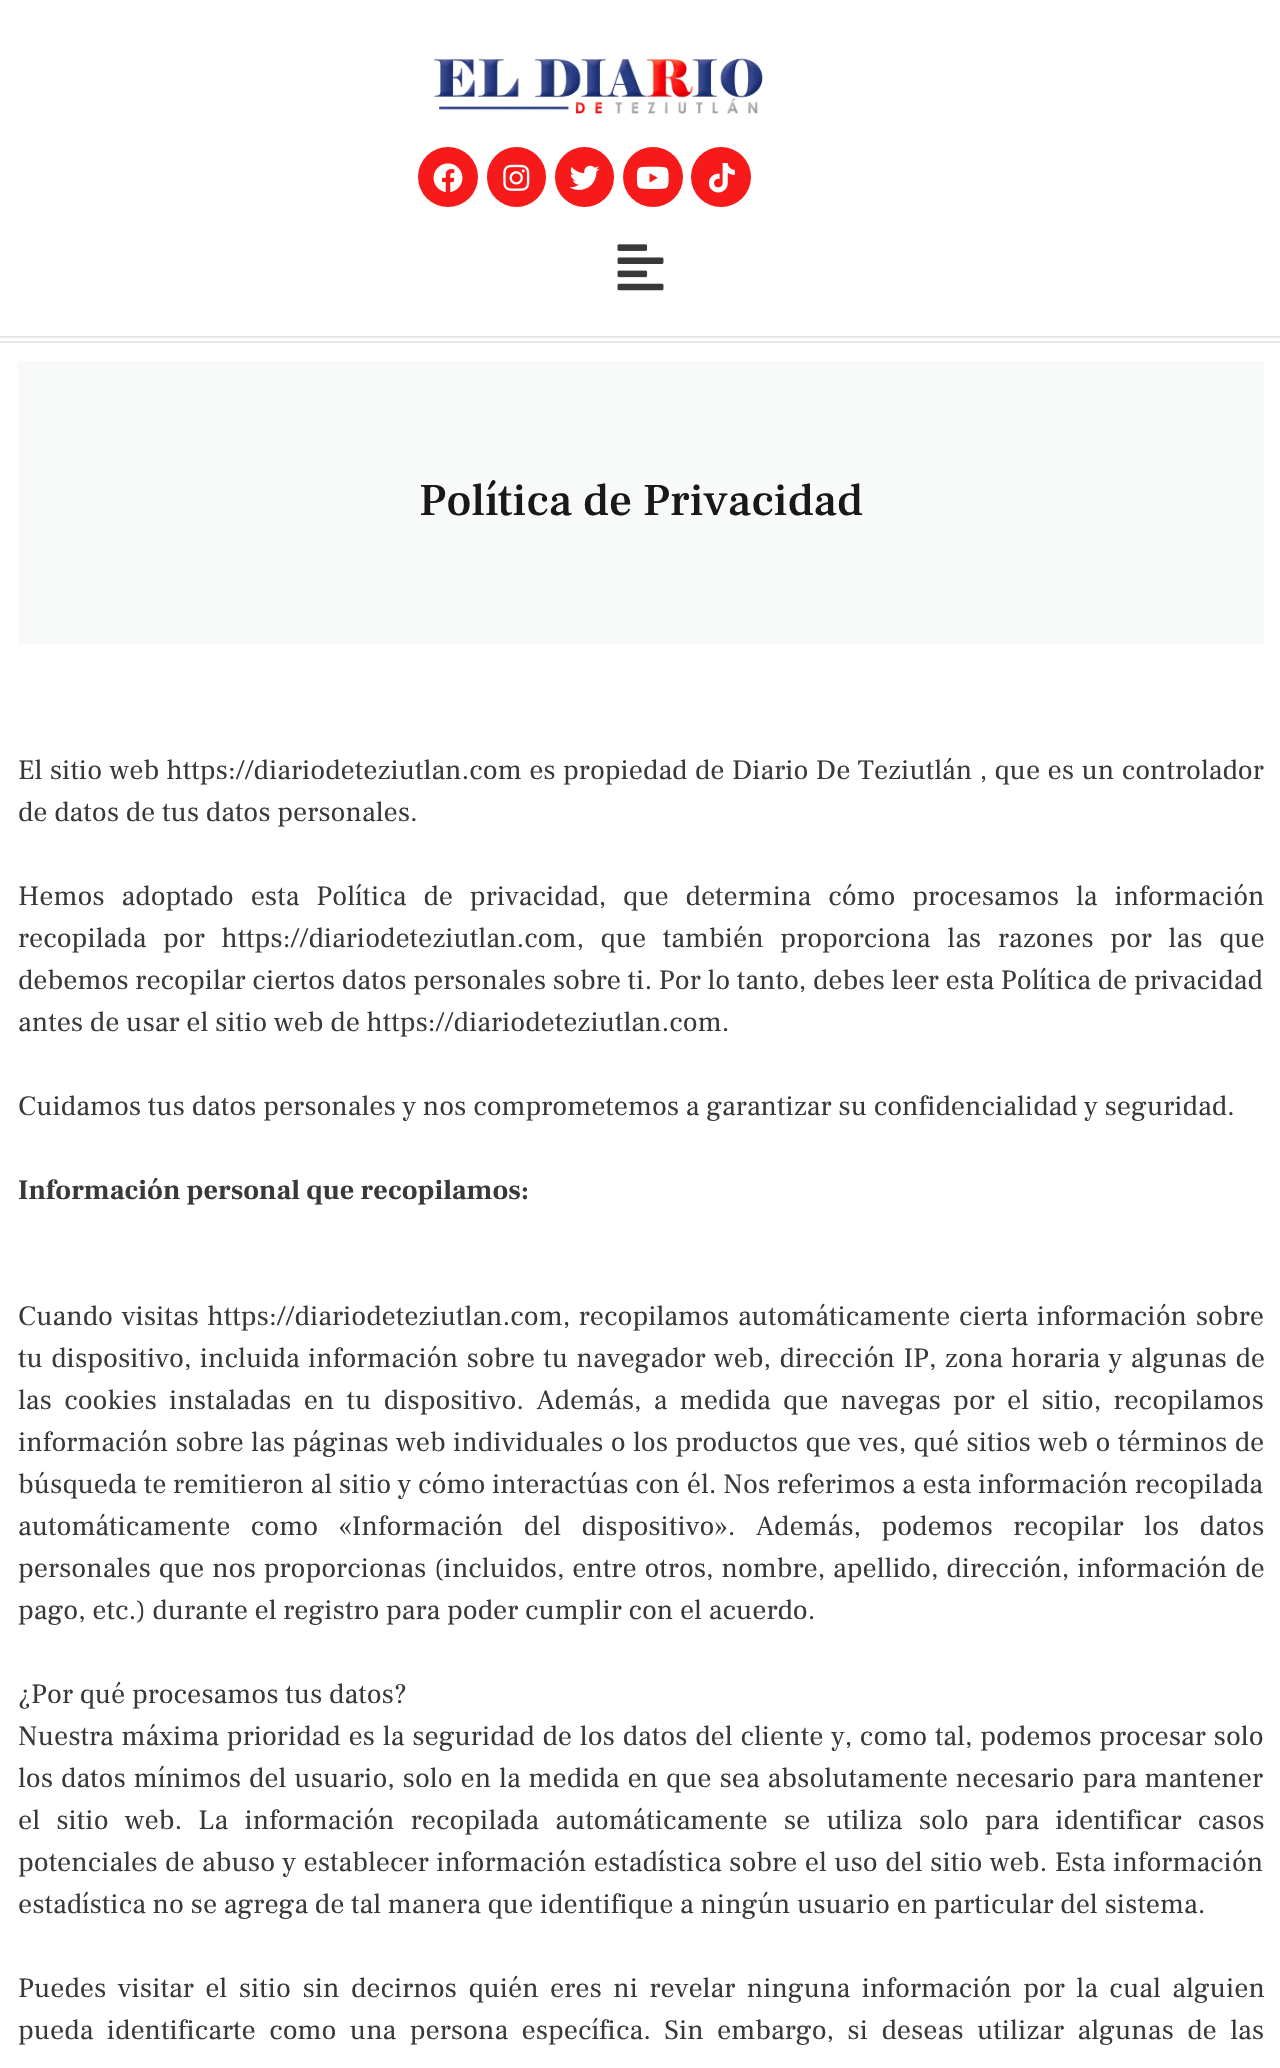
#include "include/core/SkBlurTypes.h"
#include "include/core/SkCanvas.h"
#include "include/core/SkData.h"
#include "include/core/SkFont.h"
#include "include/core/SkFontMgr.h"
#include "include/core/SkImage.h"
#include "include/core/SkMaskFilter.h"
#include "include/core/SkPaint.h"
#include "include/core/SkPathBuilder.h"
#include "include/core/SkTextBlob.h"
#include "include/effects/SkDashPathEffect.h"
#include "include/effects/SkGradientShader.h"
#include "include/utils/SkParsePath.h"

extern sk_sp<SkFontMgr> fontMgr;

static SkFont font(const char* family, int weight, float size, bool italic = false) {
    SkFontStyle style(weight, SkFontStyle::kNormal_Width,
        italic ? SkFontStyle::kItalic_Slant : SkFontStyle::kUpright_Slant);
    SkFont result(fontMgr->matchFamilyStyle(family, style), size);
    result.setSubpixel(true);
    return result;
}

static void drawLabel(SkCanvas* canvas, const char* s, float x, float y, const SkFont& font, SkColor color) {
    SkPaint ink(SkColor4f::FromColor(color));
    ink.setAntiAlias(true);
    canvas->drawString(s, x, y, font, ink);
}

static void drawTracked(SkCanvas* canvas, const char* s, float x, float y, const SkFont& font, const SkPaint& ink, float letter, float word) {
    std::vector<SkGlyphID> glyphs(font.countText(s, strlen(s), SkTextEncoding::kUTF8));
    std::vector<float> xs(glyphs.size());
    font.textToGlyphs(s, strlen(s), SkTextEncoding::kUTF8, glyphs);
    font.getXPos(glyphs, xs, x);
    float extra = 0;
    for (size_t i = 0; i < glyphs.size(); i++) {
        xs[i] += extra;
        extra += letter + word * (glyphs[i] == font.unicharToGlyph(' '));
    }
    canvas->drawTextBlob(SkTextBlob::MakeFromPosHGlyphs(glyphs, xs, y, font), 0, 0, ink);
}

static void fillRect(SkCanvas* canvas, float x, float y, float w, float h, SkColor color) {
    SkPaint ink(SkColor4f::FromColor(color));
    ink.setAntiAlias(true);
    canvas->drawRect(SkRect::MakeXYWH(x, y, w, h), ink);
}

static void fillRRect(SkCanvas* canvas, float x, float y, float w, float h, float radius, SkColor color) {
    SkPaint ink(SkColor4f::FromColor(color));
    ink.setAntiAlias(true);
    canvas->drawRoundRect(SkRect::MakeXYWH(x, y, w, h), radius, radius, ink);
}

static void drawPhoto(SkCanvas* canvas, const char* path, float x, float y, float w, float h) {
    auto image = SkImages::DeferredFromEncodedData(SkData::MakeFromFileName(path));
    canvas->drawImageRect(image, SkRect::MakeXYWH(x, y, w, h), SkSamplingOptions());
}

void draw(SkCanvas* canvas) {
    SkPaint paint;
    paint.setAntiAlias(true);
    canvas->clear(0xFFFFFFFF);
    fillRect(canvas, 0, 336, 1280, 2, 0xFFE6E6E6);
    fillRect(canvas, 0, 341, 1280, 2, 0xFFE6E6E6);
    drawPhoto(canvas, "assets/img1.png", 433, 58, 331, 57);
    paint.setColor(0xFFF71A1A);
    canvas->drawCircle(448, 177, 30, paint);
    drawPhoto(canvas, "assets/img2.png", 433, 163, 30, 29);
    fillRRect(canvas, 487, 147, 59, 60, 29.5f, 0xFFF71A1A);
    drawPhoto(canvas, "assets/img3.png", 503, 164, 27, 27);
    fillRRect(canvas, 555, 147, 59, 60, 29.5f, 0xFFF71A1A);
    drawPhoto(canvas, "assets/img4.png", 569, 165, 31, 25);
    canvas->drawCircle(653, 177, 30, paint);
    drawPhoto(canvas, "assets/img5.png", 636, 166, 33, 23);
    canvas->drawCircle(721, 177, 30, paint);
    drawPhoto(canvas, "assets/img6.png", 708, 163, 27, 30);
    drawPhoto(canvas, "assets/img7.png", 617, 244, 47, 47);
    fillRect(canvas, 18, 361, 1246, 283, 0xFFF8F9F9);
    SkFont font1 = font("Frank Ruhl Libre", 500, 45.5f);
    drawLabel(canvas, "Política de Privacidad", 419, 515, font1, 0xFF191919);
    SkFont font2 = font("Frank Ruhl Libre", 400, 28);
    paint.setColor(0xFF393939);
    drawTracked(canvas, "El sitio web https://diariodeteziutlan.com es propiedad de Diario De Teziutlán , que es un controlador", 18, 779, font2, paint, 0, 0.75f);
    drawLabel(canvas, "de datos de tus datos personales.", 18, 821, font2, 0xFF393939);
    drawTracked(canvas, "Hemos adoptado esta Política de privacidad, que determina cómo procesamos la información", 18, 905, font2, paint, 0, 10.25f);
    drawTracked(canvas, "recopilada por https://diariodeteziutlan.com, que también proporciona las razones por las que", 18, 947, font2, paint, 0, 10);
    drawLabel(canvas, "debemos recopilar ciertos datos personales sobre ti. Por lo tanto, debes leer esta Política de privacidad", 18, 989, font2, 0xFF393939);
    drawLabel(canvas, "antes de usar el sitio web de https://diariodeteziutlan.com.", 18, 1031, font2, 0xFF393939);
    drawLabel(canvas, "Cuidamos tus datos personales y nos comprometemos a garantizar su confidencialidad y seguridad.", 18, 1115, font2, 0xFF393939);
    SkFont font3 = font("Frank Ruhl Libre", 700, 28);
    drawLabel(canvas, "Información personal que recopilamos:", 18, 1199, font3, 0xFF393939);
    drawTracked(canvas, "Cuando visitas https://diariodeteziutlan.com, recopilamos automáticamente cierta información sobre", 18, 1325, font2, paint, 0, 2);
    drawTracked(canvas, "tu dispositivo, incluida información sobre tu navegador web, dirección IP, zona horaria y algunas de", 18, 1367, font2, paint, 0, 1.75f);
    drawTracked(canvas, "las cookies instaladas en tu dispositivo. Además, a medida que navegas por el sitio, recopilamos", 18, 1409, font2, paint, 0, 5.6f);
    drawTracked(canvas, "información sobre las páginas web individuales o los productos que ves, qué sitios web o términos de", 18, 1451, font2, paint, 0, 0.7f);
    drawLabel(canvas, "búsqueda te remitieron al sitio y cómo interactúas con él. Nos referimos a esta información recopilada", 18, 1493, font2, 0xFF393939);
    drawTracked(canvas, "automáticamente como «Información del dispositivo». Además, podemos recopilar los datos", 18, 1535, font2, paint, 0, 13.75f);
    drawTracked(canvas, "personales que nos proporcionas (incluidos, entre otros, nombre, apellido, dirección, información de", 18, 1577, font2, paint, 0, 1.25f);
    drawLabel(canvas, "pago, etc.) durante el registro para poder cumplir con el acuerdo.", 18, 1619, font2, 0xFF393939);
    drawLabel(canvas, "¿Por qué procesamos tus datos?", 18, 1703, font2, 0xFF393939);
    drawTracked(canvas, "Nuestra máxima prioridad es la seguridad de los datos del cliente y, como tal, podemos procesar solo", 18, 1745, font2, paint, 0, 1.1f);
    drawTracked(canvas, "los datos mínimos del usuario, solo en la medida en que sea absolutamente necesario para mantener", 18, 1787, font2, paint, 0, 1.25f);
    drawTracked(canvas, "el sitio web. La información recopilada automáticamente se utiliza solo para identificar casos", 18, 1829, font2, paint, 0, 9.5f);
    drawTracked(canvas, "potenciales de abuso y establecer información estadística sobre el uso del sitio web. Esta información", 18, 1871, font2, paint, 0, 0.75f);
    drawLabel(canvas, "estadística no se agrega de tal manera que identifique a ningún usuario en particular del sistema.", 18, 1913, font2, 0xFF393939);
    drawTracked(canvas, "Puedes visitar el sitio sin decirnos quién eres ni revelar ninguna información por la cual alguien", 18, 1997, font2, paint, 0, 4.75f);
    drawTracked(canvas, "pueda identificarte como una persona específica. Sin embargo, si deseas utilizar algunas de las", 18, 2039, font2, paint, 0, 6.75f);
}
